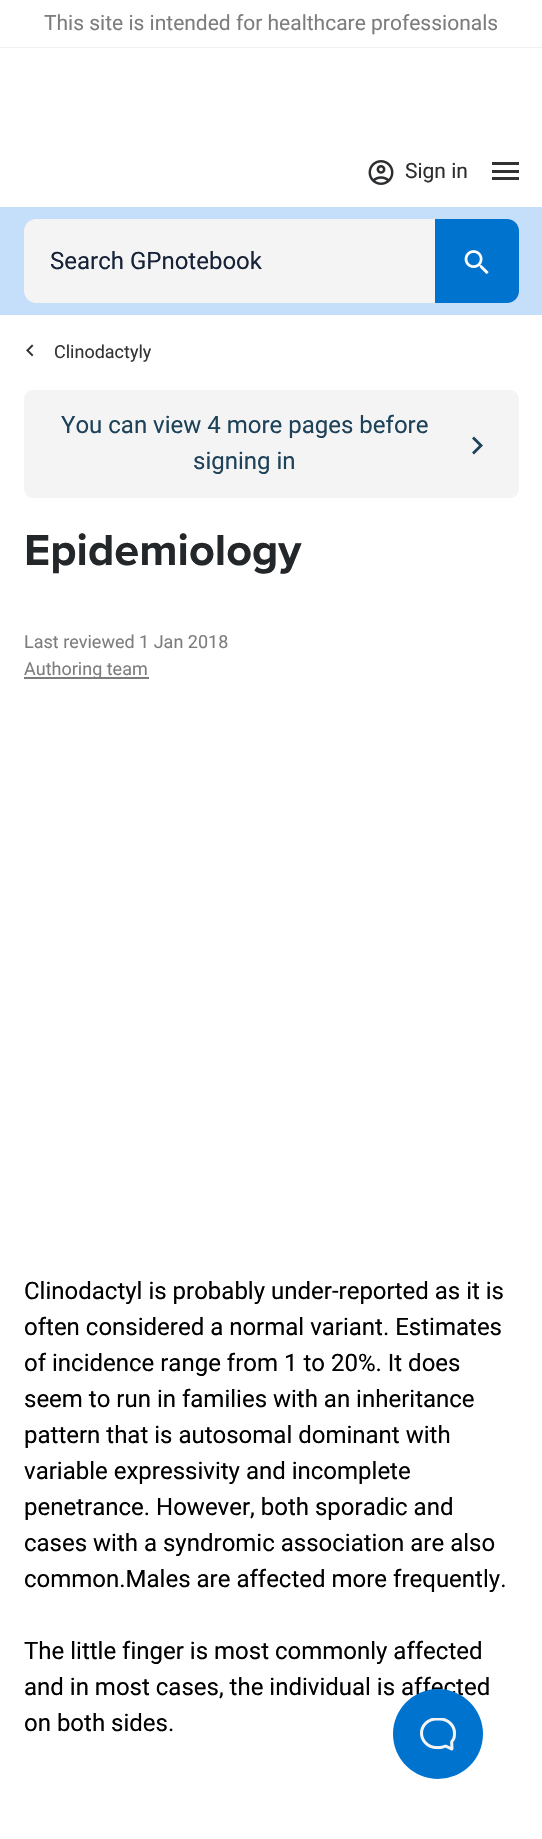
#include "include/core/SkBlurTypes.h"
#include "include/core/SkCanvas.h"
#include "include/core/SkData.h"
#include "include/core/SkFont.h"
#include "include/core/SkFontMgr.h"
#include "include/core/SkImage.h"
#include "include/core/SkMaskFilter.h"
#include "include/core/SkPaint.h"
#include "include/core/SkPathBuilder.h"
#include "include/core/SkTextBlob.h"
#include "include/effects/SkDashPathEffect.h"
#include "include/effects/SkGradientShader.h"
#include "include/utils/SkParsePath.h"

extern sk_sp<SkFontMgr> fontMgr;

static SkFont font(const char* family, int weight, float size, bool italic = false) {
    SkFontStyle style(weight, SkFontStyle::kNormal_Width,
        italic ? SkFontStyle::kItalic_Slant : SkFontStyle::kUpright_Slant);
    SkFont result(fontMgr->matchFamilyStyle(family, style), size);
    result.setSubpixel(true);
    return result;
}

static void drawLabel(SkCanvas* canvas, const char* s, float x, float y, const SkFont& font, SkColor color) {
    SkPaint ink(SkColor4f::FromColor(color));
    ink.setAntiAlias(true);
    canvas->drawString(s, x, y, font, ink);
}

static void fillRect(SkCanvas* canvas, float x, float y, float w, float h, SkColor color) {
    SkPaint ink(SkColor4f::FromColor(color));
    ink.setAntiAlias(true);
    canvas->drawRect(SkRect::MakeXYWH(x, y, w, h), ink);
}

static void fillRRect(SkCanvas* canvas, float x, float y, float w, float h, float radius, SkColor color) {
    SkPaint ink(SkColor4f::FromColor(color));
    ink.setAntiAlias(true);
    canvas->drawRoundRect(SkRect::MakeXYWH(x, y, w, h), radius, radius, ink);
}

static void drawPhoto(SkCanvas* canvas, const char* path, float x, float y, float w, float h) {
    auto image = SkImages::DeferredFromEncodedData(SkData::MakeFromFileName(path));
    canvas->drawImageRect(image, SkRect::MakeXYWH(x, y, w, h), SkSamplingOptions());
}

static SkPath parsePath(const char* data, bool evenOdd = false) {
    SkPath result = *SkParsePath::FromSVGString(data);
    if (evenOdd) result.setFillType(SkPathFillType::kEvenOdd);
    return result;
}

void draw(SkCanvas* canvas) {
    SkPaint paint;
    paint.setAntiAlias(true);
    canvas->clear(0xFFFFFFFF);
    fillRect(canvas, 0, 47, 542, 1, 0xFFF0F0F0);
    SkFont font1 = font("Roboto", 400, 21);
    drawLabel(canvas, "This site is intended for healthcare professionals", 44, 30, font1, 0xFF7D7D7D);
    drawPhoto(canvas, "assets/img1.png", 368, 160, 26, 25);
    drawLabel(canvas, "Sign in", 405, 178, font1, 0xFF2C2D2F);
    fillRect(canvas, 492, 162, 27, 3, 0xFF323232);
    fillRect(canvas, 492, 170, 27, 3, 0xFF323232);
    fillRect(canvas, 492, 177, 27, 3, 0xFF323232);
    fillRect(canvas, 0, 207, 542, 108, 0xFFC5DEF9);
    paint.setColor(0xFFF4F4F4);
    canvas->drawPath(parsePath("M36 219H435V303H36C29.5 303 24 297.5 24 291V231C24 224.5 29.5 219 36 219Z"), paint);
    SkFont font2 = font("Roboto", 400, 24);
    drawLabel(canvas, "Search GPnotebook", 50, 269, font2, 0xFF152237);
    paint.setColor(0xFF0073CF);
    canvas->drawPath(parsePath("M435 219H507C513.5 219 519 224.5 519 231V291C519 297.5 513.5 303 507 303H435Z"), paint);
    drawPhoto(canvas, "assets/img2.png", 464, 250, 25, 25);
    drawPhoto(canvas, "assets/img3.png", 26, 344, 8, 13);
    SkFont font3 = font("Roboto", 400, 18);
    drawLabel(canvas, "Clinodactyly", 54, 358, font3, 0xFF333333);
    fillRRect(canvas, 24, 390, 495, 108, 9, 0xFFF4F4F4);
    drawLabel(canvas, "You can view 4 more pages before", 61, 433, font2, 0xFF1D4259);
    drawLabel(canvas, "signing in", 193, 469, font2, 0xFF1D4259);
    paint.setColor(0xFF1D4259);
    canvas->drawPath(parsePath("M474 436.5L472 438.5L479 445.5L472 452.5L474 454.5L483 445.5Z"), paint);
    SkFont font4 = font("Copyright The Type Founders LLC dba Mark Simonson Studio", 700, 45);
    drawLabel(canvas, "Epidemiology", 24, 565, font4, 0xFF24272A);
    drawLabel(canvas, "Last reviewed 1 Jan 2018", 24, 648, font3, 0xFF7D7D7D);
    fillRect(canvas, 24, 677, 125, 2, 0xFF7D7D7D);
    drawLabel(canvas, "Authoring team", 24, 675, font3, 0xFF7D7D7D);
    drawLabel(canvas, "Clinodactyl is probably under-reported as it is", 24, 1299, font2, 0xFF000000);
    drawLabel(canvas, "often considered a normal variant. Estimates", 24, 1335, font2, 0xFF000000);
    drawLabel(canvas, "of incidence range from 1 to 20%. It does", 24, 1371, font2, 0xFF000000);
    drawLabel(canvas, "seem to run in families with an inheritance", 24, 1407, font2, 0xFF000000);
    drawLabel(canvas, "pattern that is autosomal dominant with", 24, 1443, font2, 0xFF000000);
    drawLabel(canvas, "variable expressivity and incomplete", 24, 1479, font2, 0xFF000000);
    drawLabel(canvas, "penetrance. However, both sporadic and", 24, 1515, font2, 0xFF000000);
    drawLabel(canvas, "cases with a syndromic association are also", 24, 1551, font2, 0xFF000000);
    drawLabel(canvas, "common.Males are affected more frequently.", 24, 1587, font2, 0xFF000000);
    drawLabel(canvas, "The little finger is most commonly affected", 24, 1659, font2, 0xFF000000);
    drawLabel(canvas, "and in most cases, the individual is affected", 24, 1695, font2, 0xFF000000);
    drawLabel(canvas, "on both sides.", 24, 1731, font2, 0xFF000000);
    paint.setColor(0xFF0073CF);
    canvas->drawCircle(438, 1734, 45, paint);
    drawPhoto(canvas, "assets/img4.png", 420, 1718, 36, 33);
}
